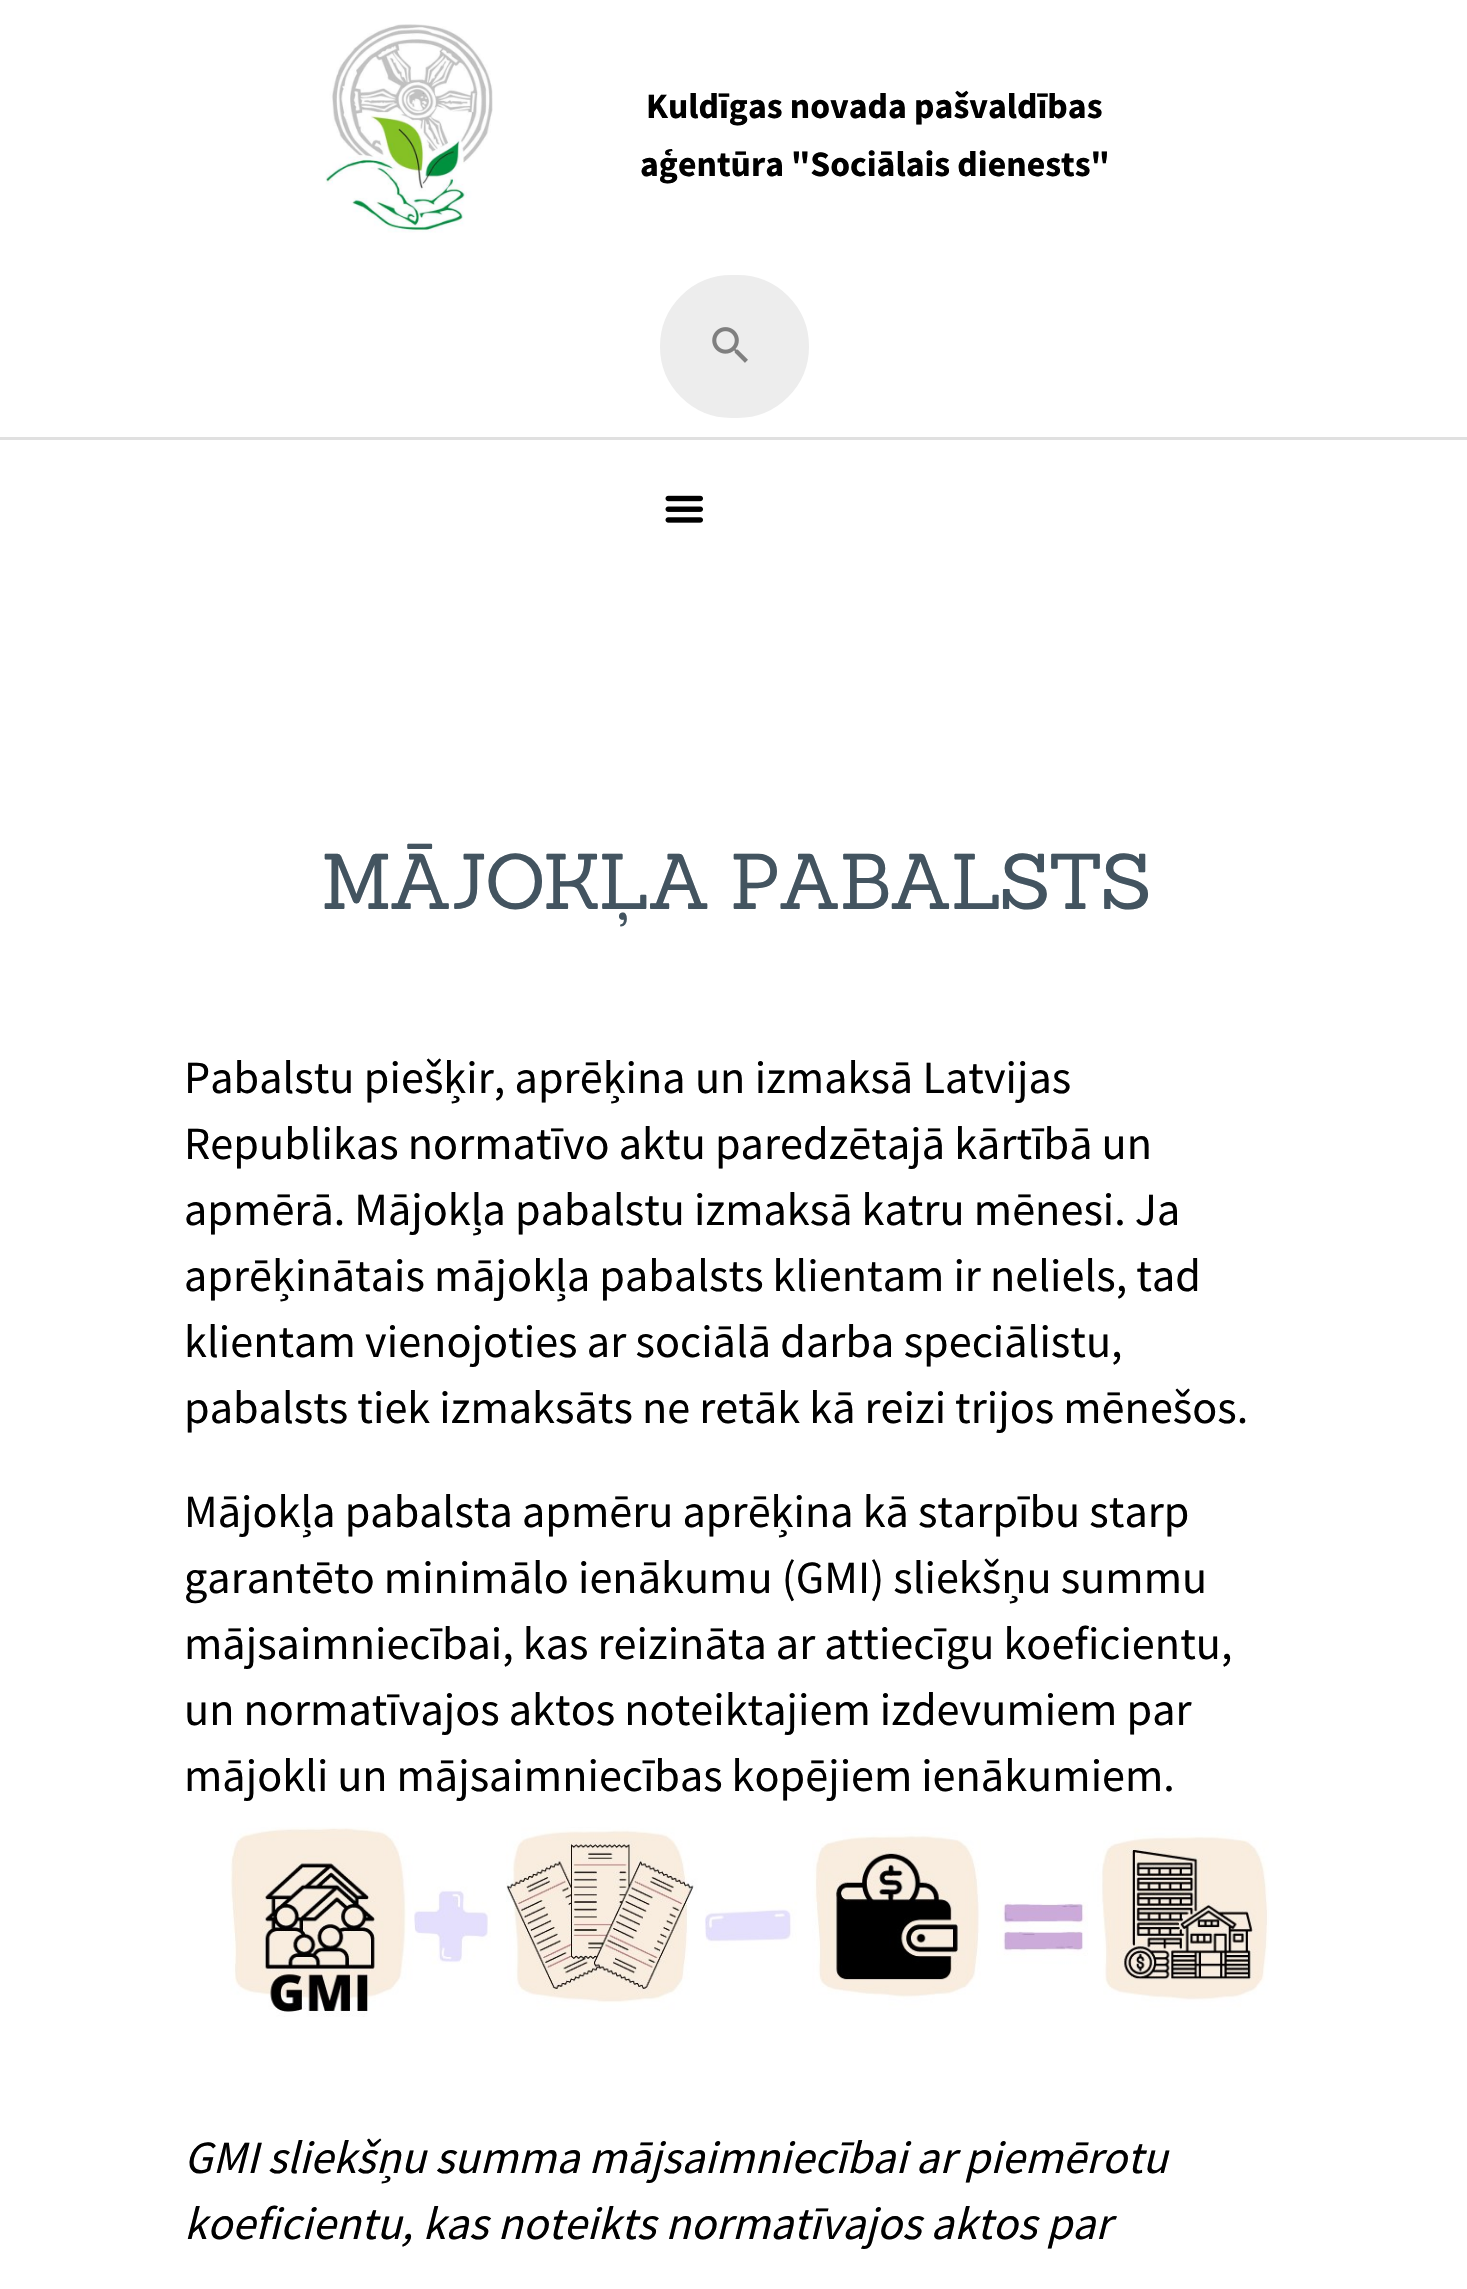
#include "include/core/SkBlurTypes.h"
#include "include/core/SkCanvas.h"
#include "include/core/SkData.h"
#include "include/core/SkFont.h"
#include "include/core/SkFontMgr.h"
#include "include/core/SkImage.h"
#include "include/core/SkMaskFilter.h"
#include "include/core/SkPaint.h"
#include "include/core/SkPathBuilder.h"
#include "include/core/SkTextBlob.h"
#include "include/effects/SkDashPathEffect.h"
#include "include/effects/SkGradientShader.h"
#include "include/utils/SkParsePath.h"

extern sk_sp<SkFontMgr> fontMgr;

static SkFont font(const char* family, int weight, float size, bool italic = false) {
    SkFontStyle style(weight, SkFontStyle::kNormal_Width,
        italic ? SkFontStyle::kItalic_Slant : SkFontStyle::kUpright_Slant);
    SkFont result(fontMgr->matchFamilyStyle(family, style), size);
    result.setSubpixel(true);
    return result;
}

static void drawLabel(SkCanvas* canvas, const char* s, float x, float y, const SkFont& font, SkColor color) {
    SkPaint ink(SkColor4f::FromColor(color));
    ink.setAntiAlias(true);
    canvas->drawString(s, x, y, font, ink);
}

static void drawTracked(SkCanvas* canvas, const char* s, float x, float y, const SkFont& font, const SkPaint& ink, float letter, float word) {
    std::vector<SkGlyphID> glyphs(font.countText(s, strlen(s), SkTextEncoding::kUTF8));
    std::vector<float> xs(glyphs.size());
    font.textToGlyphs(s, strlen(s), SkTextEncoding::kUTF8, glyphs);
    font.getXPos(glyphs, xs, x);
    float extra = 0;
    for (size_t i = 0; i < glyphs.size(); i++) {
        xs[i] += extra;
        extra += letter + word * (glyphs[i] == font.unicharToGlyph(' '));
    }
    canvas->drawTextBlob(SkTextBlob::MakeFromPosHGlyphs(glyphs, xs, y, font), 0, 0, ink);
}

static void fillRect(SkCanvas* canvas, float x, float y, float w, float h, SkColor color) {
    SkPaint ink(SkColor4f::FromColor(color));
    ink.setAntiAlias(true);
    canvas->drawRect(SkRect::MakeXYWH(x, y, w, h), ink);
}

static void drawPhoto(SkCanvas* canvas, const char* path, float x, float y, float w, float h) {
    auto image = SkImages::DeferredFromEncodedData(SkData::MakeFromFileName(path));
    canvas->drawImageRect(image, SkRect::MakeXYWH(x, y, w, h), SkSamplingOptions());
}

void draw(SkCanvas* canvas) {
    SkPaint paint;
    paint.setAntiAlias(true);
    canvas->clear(0xFFFFFFFF);
    fillRect(canvas, 0, 437, 1467, 3, 0xFFE0E0E0);
    drawPhoto(canvas, "assets/img1.png", 325, 24, 168, 209);
    SkFont font1 = font("Source Sans Pro", 700, 35.75f);
    drawLabel(canvas, "Kuldīgas novada pašvaldības", 646, 118, font1, 0xFF000000);
    drawLabel(canvas, "aģentūra \"Sociālais dienests\"", 640, 176, font1, 0xFF000000);
    paint.setColor(0xFFEDEDED);
    canvas->drawRoundRect(SkRect::MakeXYWH(663, 278, 143, 137), 68.5f, 68.5f, paint);
    paint.setStroke(true);
    paint.setStrokeWidth(6);
    canvas->drawRoundRect(SkRect::MakeXYWH(663, 278, 143, 137), 68.5f, 68.5f, paint);
    drawPhoto(canvas, "assets/img2.png", 712, 327, 36, 36);
    drawPhoto(canvas, "assets/img3.png", 665, 495, 38, 28);
    SkFont font2 = font("Sanchez", 400, 77);
    paint.setStroke(false);
    paint.setColor(0xFF435460);
    drawTracked(canvas, "MĀJOKĻA PABALSTS", 321, 909, font2, paint, -3, 0);
    SkFont font3 = font("Source Sans Pro", 400, 46.2f);
    paint.setColor(0xFF000000);
    drawTracked(canvas, "Pabalstu piešķir, aprēķina un izmaksā Latvijas", 184, 1093, font3, paint, 0.05f, 0);
    drawTracked(canvas, "Republikas normatīvo aktu paredzētajā kārtībā un", 184, 1159, font3, paint, 0.05f, -0.25f);
    drawTracked(canvas, "apmērā. Mājokļa pabalstu izmaksā katru mēnesi. Ja", 184, 1225, font3, paint, 0.05f, -0.25f);
    drawTracked(canvas, "aprēķinātais mājokļa pabalsts klientam ir neliels, tad", 184, 1291, font3, paint, 0.05f, -0.25f);
    drawTracked(canvas, "klientam vienojoties ar sociālā darba speciālistu,", 184, 1357, font3, paint, 0.05f, 0);
    drawTracked(canvas, "pabalsts tiek izmaksāts ne retāk kā reizi trijos mēnešos.", 184, 1423, font3, paint, 0.05f, -0.25f);
    drawTracked(canvas, "Mājokļa pabalsta apmēru aprēķina kā starpību starp", 184, 1527, font3, paint, 0.05f, -0.25f);
    drawTracked(canvas, "garantēto minimālo ienākumu (GMI) sliekšņu summu", 184, 1593, font3, paint, 0.05f, -0.25f);
    drawTracked(canvas, "mājsaimniecībai, kas reizināta ar attiecīgu koeficientu,", 184, 1659, font3, paint, 0.05f, -0.25f);
    drawTracked(canvas, "un normatīvajos aktos noteiktajiem izdevumiem par", 184, 1725, font3, paint, 0.05f, -0.25f);
    drawTracked(canvas, "mājokli un mājsaimniecības kopējiem ienākumiem.", 184, 1791, font3, paint, 0.05f, -0.5f);
    drawPhoto(canvas, "assets/img4.png", 230, 1827, 1039, 190);
    SkFont font4 = font("Source Sans Pro", 400, 46.2f, true);
    drawTracked(canvas, "GMI sliekšņu summa mājsaimniecībai ar piemērotu", 184, 2173, font4, paint, 0.05f, -0.25f);
    drawTracked(canvas, "koeficientu, kas noteikts normatīvajos aktos par", 184, 2239, font4, paint, 0.05f, 0);
}
